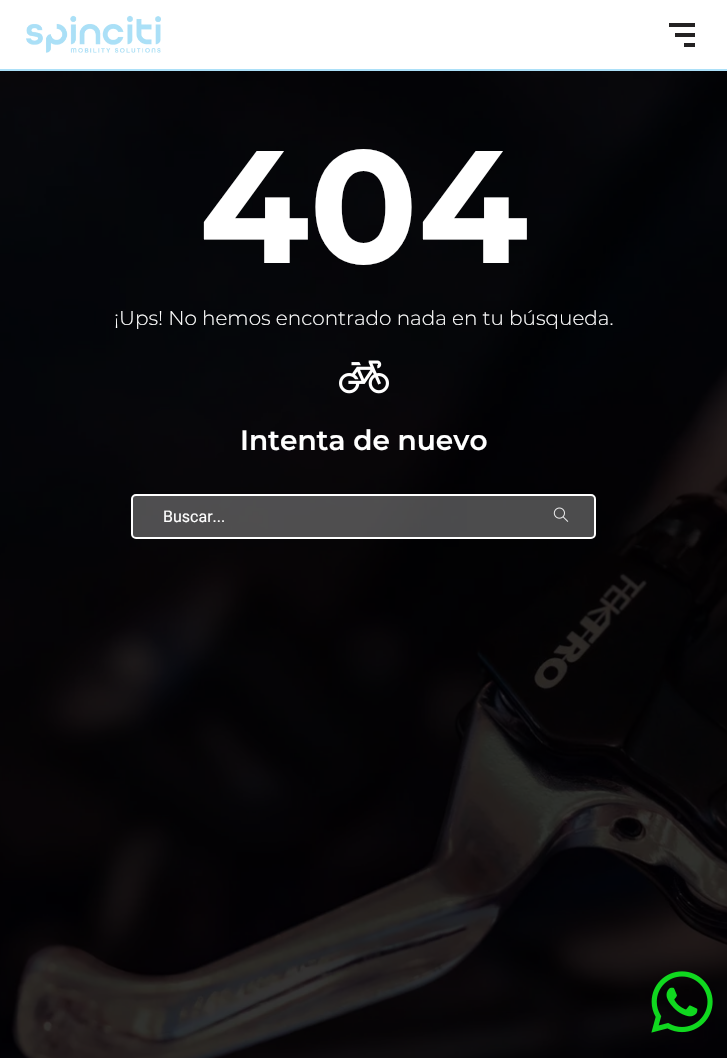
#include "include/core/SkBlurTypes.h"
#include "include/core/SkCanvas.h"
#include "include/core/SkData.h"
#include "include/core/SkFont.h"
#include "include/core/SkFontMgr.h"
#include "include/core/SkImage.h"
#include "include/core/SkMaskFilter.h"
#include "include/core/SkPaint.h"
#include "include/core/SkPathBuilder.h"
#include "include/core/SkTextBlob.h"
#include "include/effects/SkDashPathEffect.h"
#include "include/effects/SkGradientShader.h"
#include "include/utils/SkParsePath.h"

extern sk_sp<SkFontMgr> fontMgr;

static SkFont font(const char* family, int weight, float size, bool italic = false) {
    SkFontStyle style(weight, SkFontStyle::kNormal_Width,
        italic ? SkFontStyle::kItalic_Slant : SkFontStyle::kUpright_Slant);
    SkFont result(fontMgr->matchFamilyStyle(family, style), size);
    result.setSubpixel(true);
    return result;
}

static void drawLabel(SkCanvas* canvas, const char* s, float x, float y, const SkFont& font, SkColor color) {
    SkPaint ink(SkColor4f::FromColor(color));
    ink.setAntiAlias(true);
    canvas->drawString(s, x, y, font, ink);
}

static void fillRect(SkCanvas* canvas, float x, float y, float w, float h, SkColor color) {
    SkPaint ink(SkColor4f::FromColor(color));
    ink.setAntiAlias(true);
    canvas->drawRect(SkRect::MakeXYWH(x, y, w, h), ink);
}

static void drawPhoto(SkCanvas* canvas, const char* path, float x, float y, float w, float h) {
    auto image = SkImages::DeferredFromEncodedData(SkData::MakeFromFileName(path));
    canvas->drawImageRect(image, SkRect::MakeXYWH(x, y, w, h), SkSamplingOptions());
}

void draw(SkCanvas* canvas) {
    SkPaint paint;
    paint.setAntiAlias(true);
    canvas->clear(0xFFFFFFFF);
    fillRect(canvas, 0, 69, 727, 2, 0xFFACE0F8);
    drawPhoto(canvas, "assets/img1.png", 26, 15, 135, 38);
    fillRect(canvas, 669, 23, 26, 4, 0xFF242223);
    fillRect(canvas, 675, 33, 20, 4, 0xFF242223);
    fillRect(canvas, 684, 43, 11, 4, 0xFF242223);
    drawPhoto(canvas, "assets/img2.png", 0, 71, 727, 987);
    SkFont font1 = font("Montserrat", 700, 160);
    drawLabel(canvas, "404", 199, 263, font1, 0xFFFFFFFF);
    SkFont font2 = font("Montserrat", 300, 20);
    drawLabel(canvas, "¡Ups! No hemos encontrado nada en tu búsqueda.", 114, 325, font2, 0xFFFFFFFF);
    drawPhoto(canvas, "assets/img3.png", 339, 360, 50, 34);
    SkFont font3 = font("Montserrat", 600, 28);
    drawLabel(canvas, "Intenta de nuevo", 240, 450, font3, 0xFFFFFFFF);
    paint.setColor(0x4AFFFFFF);
    canvas->drawRoundRect(SkRect::MakeXYWH(132, 495, 463, 43), 4, 4, paint);
    paint.setStroke(true);
    paint.setStrokeWidth(2);
    paint.setColor(0xFFFFFFFF);
    canvas->drawRoundRect(SkRect::MakeXYWH(132, 495, 463, 43), 4, 4, paint);
    SkFont font4 = font("Roboto", 400, 16);
    drawLabel(canvas, "Buscar...", 163, 522, font4, 0xFFFFFFFF);
    drawPhoto(canvas, "assets/img4.png", 553, 507, 16, 15);
    drawPhoto(canvas, "assets/img5.png", 651, 971, 62, 62);
}
